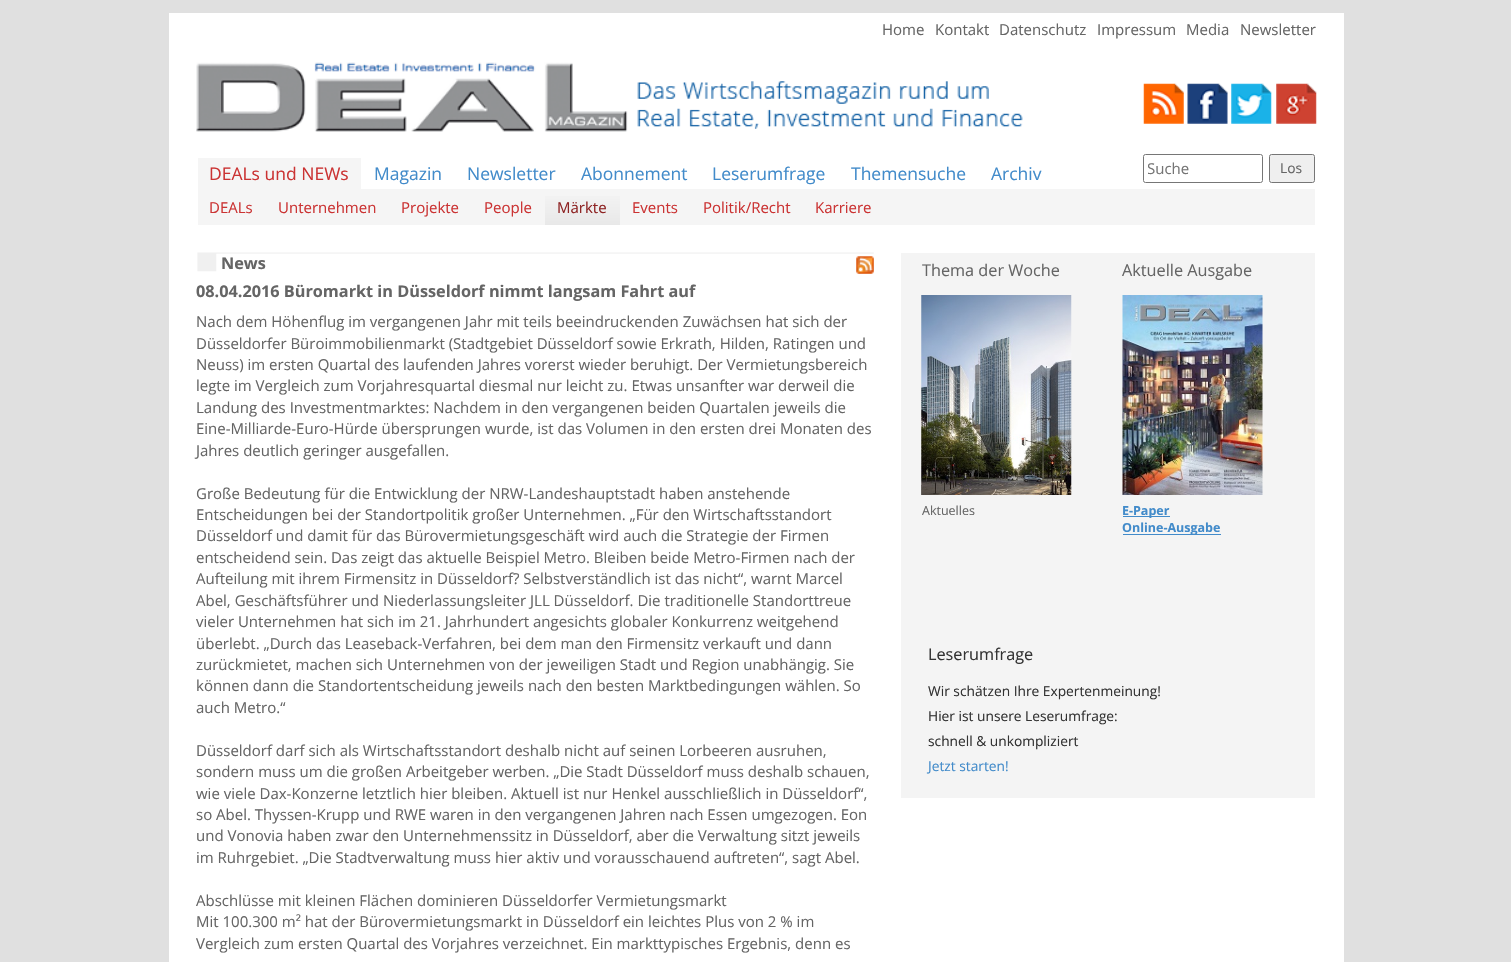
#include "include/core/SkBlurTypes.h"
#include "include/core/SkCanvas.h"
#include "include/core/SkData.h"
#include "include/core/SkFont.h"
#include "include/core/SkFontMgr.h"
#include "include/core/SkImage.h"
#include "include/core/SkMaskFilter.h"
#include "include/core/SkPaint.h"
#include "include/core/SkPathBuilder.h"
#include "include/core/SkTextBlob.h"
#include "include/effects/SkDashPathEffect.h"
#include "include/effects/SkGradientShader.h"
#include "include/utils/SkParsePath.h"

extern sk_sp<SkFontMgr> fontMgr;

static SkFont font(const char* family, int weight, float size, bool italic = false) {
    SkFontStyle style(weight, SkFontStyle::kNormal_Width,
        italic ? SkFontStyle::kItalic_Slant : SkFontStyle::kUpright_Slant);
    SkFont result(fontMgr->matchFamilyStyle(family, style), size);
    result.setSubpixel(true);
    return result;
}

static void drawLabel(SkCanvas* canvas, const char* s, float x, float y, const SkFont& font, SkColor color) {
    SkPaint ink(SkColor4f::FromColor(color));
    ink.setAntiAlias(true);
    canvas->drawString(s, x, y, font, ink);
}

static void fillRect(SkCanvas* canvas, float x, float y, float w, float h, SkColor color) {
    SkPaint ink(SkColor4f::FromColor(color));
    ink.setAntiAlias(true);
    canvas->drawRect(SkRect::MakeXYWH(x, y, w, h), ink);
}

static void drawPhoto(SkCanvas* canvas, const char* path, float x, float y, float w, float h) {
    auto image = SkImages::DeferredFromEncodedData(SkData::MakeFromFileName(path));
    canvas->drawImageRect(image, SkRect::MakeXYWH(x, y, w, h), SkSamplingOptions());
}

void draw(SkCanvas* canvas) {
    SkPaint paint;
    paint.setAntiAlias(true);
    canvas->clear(0xFFE0E0E0);
    fillRect(canvas, 169, 13, 1175, 949, 0xFFFFFFFF);
    SkFont font1 = font("Open Sans", 400, 15);
    drawLabel(canvas, "Home", 882, 35, font1, 0xFF656565);
    drawLabel(canvas, "Kontakt", 935, 35, font1, 0xFF656565);
    drawLabel(canvas, "Datenschutz", 999, 35, font1, 0xFF656565);
    drawLabel(canvas, "Impressum", 1097, 35, font1, 0xFF656565);
    drawLabel(canvas, "Media", 1186, 35, font1, 0xFF656565);
    drawLabel(canvas, "Newsletter", 1240, 35, font1, 0xFF656565);
    drawPhoto(canvas, "assets/img1.png", 196, 62, 827, 70);
    drawPhoto(canvas, "assets/img2.png", 1143, 83, 41, 41);
    drawPhoto(canvas, "assets/img3.png", 1187, 83, 41, 41);
    drawPhoto(canvas, "assets/img4.png", 1231, 83, 41, 41);
    drawPhoto(canvas, "assets/img5.png", 1276, 83, 41, 41);
    fillRect(canvas, 198, 158, 163, 31, 0xFFF5F5F5);
    SkFont font2 = font("Open Sans", 400, 17.5f);
    drawLabel(canvas, "DEALs und NEWs", 209, 180, font2, 0xFFCB3333);
    fillRect(canvas, 198, 189, 1117, 36, 0xFFF5F5F5);
    drawLabel(canvas, "DEALs", 209, 213, font1, 0xFFCB3333);
    drawLabel(canvas, "Unternehmen", 278, 213, font1, 0xFFCB3333);
    drawLabel(canvas, "Projekte", 401, 213, font1, 0xFFCB3333);
    drawLabel(canvas, "People", 484, 213, font1, 0xFFCB3333);
    {
        const SkColor colors[] = {0xFFF5F5F5, 0xFFE8E8E8};
        const float stops[] = {0, 1};
        const SkPoint ends[] = {{583, 189}, {583, 225}};
        paint.setShader(SkGradientShader::MakeLinear(ends, colors, stops, 2, SkTileMode::kClamp));
        paint.setAlpha(255);
    }
    canvas->drawRect(SkRect::MakeXYWH(545, 196, 75, 29), paint);
    drawLabel(canvas, "Märkte", 557, 213, font1, 0xFF8E2424);
    drawLabel(canvas, "Events", 632, 213, font1, 0xFFCB3333);
    drawLabel(canvas, "Politik/Recht", 703, 213, font1, 0xFFCB3333);
    drawLabel(canvas, "Karriere", 815, 213, font1, 0xFFCB3333);
    drawLabel(canvas, "Magazin", 374, 180, font2, 0xFF428BCA);
    drawLabel(canvas, "Newsletter", 467, 180, font2, 0xFF428BCA);
    drawLabel(canvas, "Abonnement", 581, 180, font2, 0xFF428BCA);
    drawLabel(canvas, "Leserumfrage", 712, 180, font2, 0xFF428BCA);
    drawLabel(canvas, "Themensuche", 851, 180, font2, 0xFF428BCA);
    drawLabel(canvas, "Archiv", 991, 180, font2, 0xFF428BCA);
    paint.setStroke(true);
    paint.setStrokeWidth(1);
    paint.setShader(nullptr);
    paint.setColor(0xFF767676);
    canvas->drawRoundRect(SkRect::MakeXYWH(1143.5f, 154.5f, 119, 28), 2, 2, paint);
    canvas->save();
    canvas->clipRect(SkRect::MakeXYWH(1148, 158, 110, 21));
    drawLabel(canvas, "Suche", 1147, 174, font1, 0xFF757575);
    canvas->restore();
    paint.setStroke(false);
    paint.setColor(0xFFEFEFEF);
    canvas->drawRoundRect(SkRect::MakeXYWH(1269.5f, 154.5f, 45, 28), 2, 2, paint);
    paint.setStroke(true);
    paint.setColor(0xFF767676);
    canvas->drawRoundRect(SkRect::MakeXYWH(1269.5f, 154.5f, 45, 28), 2, 2, paint);
    SkFont font3 = font("Open Sans", 400, 13.75f);
    drawLabel(canvas, "Los", 1280, 173, font3, 0xFF656565);
    drawPhoto(canvas, "assets/img6.png", 197, 252, 677, 20);
    SkFont font4 = font("Open Sans", 700, 16.25f);
    drawLabel(canvas, "News", 221, 269, font4, 0xFF656565);
    drawPhoto(canvas, "assets/img7.png", 856, 256, 18, 18);
    drawLabel(canvas, "08.04.2016 Büromarkt in Düsseldorf nimmt langsam Fahrt auf", 196, 297, font4, 0xFF656565);
    drawLabel(canvas, "Nach dem Höhenflug im vergangenen Jahr mit teils beeindruckenden Zuwächsen hat sich der", 196, 327, font1, 0xFF656565);
    drawLabel(canvas, "Düsseldorfer Büroimmobilienmarkt (Stadtgebiet Düsseldorf sowie Erkrath, Hilden, Ratingen und", 196, 349, font1, 0xFF656565);
    drawLabel(canvas, "Neuss) im ersten Quartal des laufenden Jahres vorerst wieder beruhigt. Der Vermietungsbereich", 196, 370, font1, 0xFF656565);
    drawLabel(canvas, "legte im Vergleich zum Vorjahresquartal diesmal nur leicht zu. Etwas unsanfter war derweil die", 196, 391, font1, 0xFF656565);
    drawLabel(canvas, "Landung des Investmentmarktes: Nachdem in den vergangenen beiden Quartalen jeweils die", 196, 413, font1, 0xFF656565);
    drawLabel(canvas, "Eine-Milliarde-Euro-Hürde übersprungen wurde, ist das Volumen in den ersten drei Monaten des", 196, 434, font1, 0xFF656565);
    drawLabel(canvas, "Jahres deutlich geringer ausgefallen.", 196, 456, font1, 0xFF656565);
    drawLabel(canvas, "Große Bedeutung für die Entwicklung der NRW-Landeshauptstadt haben anstehende", 196, 499, font1, 0xFF656565);
    drawLabel(canvas, "Entscheidungen bei der Standortpolitik großer Unternehmen. „Für den Wirtschaftsstandort", 196, 520, font1, 0xFF656565);
    drawLabel(canvas, "Düsseldorf und damit für das Bürovermietungsgeschäft wird auch die Strategie der Firmen", 196, 541, font1, 0xFF656565);
    drawLabel(canvas, "entscheidend sein. Das zeigt das aktuelle Beispiel Metro. Bleiben beide Metro-Firmen nach der", 196, 563, font1, 0xFF656565);
    drawLabel(canvas, "Aufteilung mit ihrem Firmensitz in Düsseldorf? Selbstverständlich ist das nicht“, warnt Marcel", 196, 584, font1, 0xFF656565);
    drawLabel(canvas, "Abel, Geschäftsführer und Niederlassungsleiter JLL Düsseldorf. Die traditionelle Standorttreue", 196, 606, font1, 0xFF656565);
    drawLabel(canvas, "vieler Unternehmen hat sich im 21. Jahrhundert angesichts globaler Konkurrenz weitgehend", 196, 627, font1, 0xFF656565);
    drawLabel(canvas, "überlebt. „Durch das Leaseback-Verfahren, bei dem man den Firmensitz verkauft und dann", 196, 649, font1, 0xFF656565);
    drawLabel(canvas, "zurückmietet, machen sich Unternehmen von der jeweiligen Stadt und Region unabhängig. Sie", 196, 670, font1, 0xFF656565);
    drawLabel(canvas, "können dann die Standortentscheidung jeweils nach den besten Marktbedingungen wählen. So", 196, 691, font1, 0xFF656565);
    drawLabel(canvas, "auch Metro.“", 196, 713, font1, 0xFF656565);
    drawLabel(canvas, "Düsseldorf darf sich als Wirtschaftsstandort deshalb nicht auf seinen Lorbeeren ausruhen,", 196, 756, font1, 0xFF656565);
    drawLabel(canvas, "sondern muss um die großen Arbeitgeber werben. „Die Stadt Düsseldorf muss deshalb schauen,", 196, 777, font1, 0xFF656565);
    drawLabel(canvas, "wie viele Dax-Konzerne letztlich hier bleiben. Aktuell ist nur Henkel ausschließlich in Düsseldorf“,", 196, 799, font1, 0xFF656565);
    drawLabel(canvas, "so Abel. Thyssen-Krupp und RWE waren in den vergangenen Jahren nach Essen umgezogen. Eon", 196, 820, font1, 0xFF656565);
    drawLabel(canvas, "und Vonovia haben zwar den Unternehmenssitz in Düsseldorf, aber die Verwaltung sitzt jeweils", 196, 841, font1, 0xFF656565);
    drawLabel(canvas, "im Ruhrgebiet. „Die Stadtverwaltung muss hier aktiv und vorausschauend auftreten“, sagt Abel.", 196, 863, font1, 0xFF656565);
    drawLabel(canvas, "Abschlüsse mit kleinen Flächen dominieren Düsseldorfer Vermietungsmarkt", 196, 906, font1, 0xFF656565);
    drawLabel(canvas, "Mit 100.300 m² hat der Bürovermietungsmarkt in Düsseldorf ein leichtes Plus von 2 % im", 196, 927, font1, 0xFF656565);
    drawLabel(canvas, "Vergleich zum ersten Quartal des Vorjahres verzeichnet. Ein markttypisches Ergebnis, denn es", 196, 949, font1, 0xFF656565);
    fillRect(canvas, 901, 253, 414, 545, 0xFFF4F4F4);
    SkFont font5 = font("Open Sans", 400, 16.25f);
    drawLabel(canvas, "Thema der Woche", 922, 276, font5, 0xFF656565);
    drawPhoto(canvas, "assets/img8.png", 921, 295, 151, 200);
    SkFont font6 = font("Open Sans", 400, 12.5f);
    drawLabel(canvas, "Aktuelles", 922, 515, font6, 0xFF656565);
    drawLabel(canvas, "Aktuelle Ausgabe", 1122, 276, font5, 0xFF656565);
    drawPhoto(canvas, "assets/img9.png", 1122, 295, 141, 200);
    fillRect(canvas, 1123, 516, 47, 1, 0xFF428BCA);
    SkFont font7 = font("Open Sans", 700, 12.5f);
    drawLabel(canvas, "E-Paper", 1122, 515, font7, 0xFF428BCA);
    fillRect(canvas, 1123, 534, 98, 1, 0xFF428BCA);
    drawLabel(canvas, "Online-Ausgabe", 1122, 532, font7, 0xFF428BCA);
    drawLabel(canvas, "Leserumfrage", 928, 660, font5, 0xFF333333);
    drawLabel(canvas, "Wir schätzen Ihre Expertenmeinung!", 928, 696, font3, 0xFF333333);
    drawLabel(canvas, "Hier ist unsere Leserumfrage:", 928, 721, font3, 0xFF333333);
    drawLabel(canvas, "schnell & unkompliziert", 928, 746, font3, 0xFF333333);
    drawLabel(canvas, "Jetzt starten!", 928, 771, font3, 0xFF428BCA);
}
